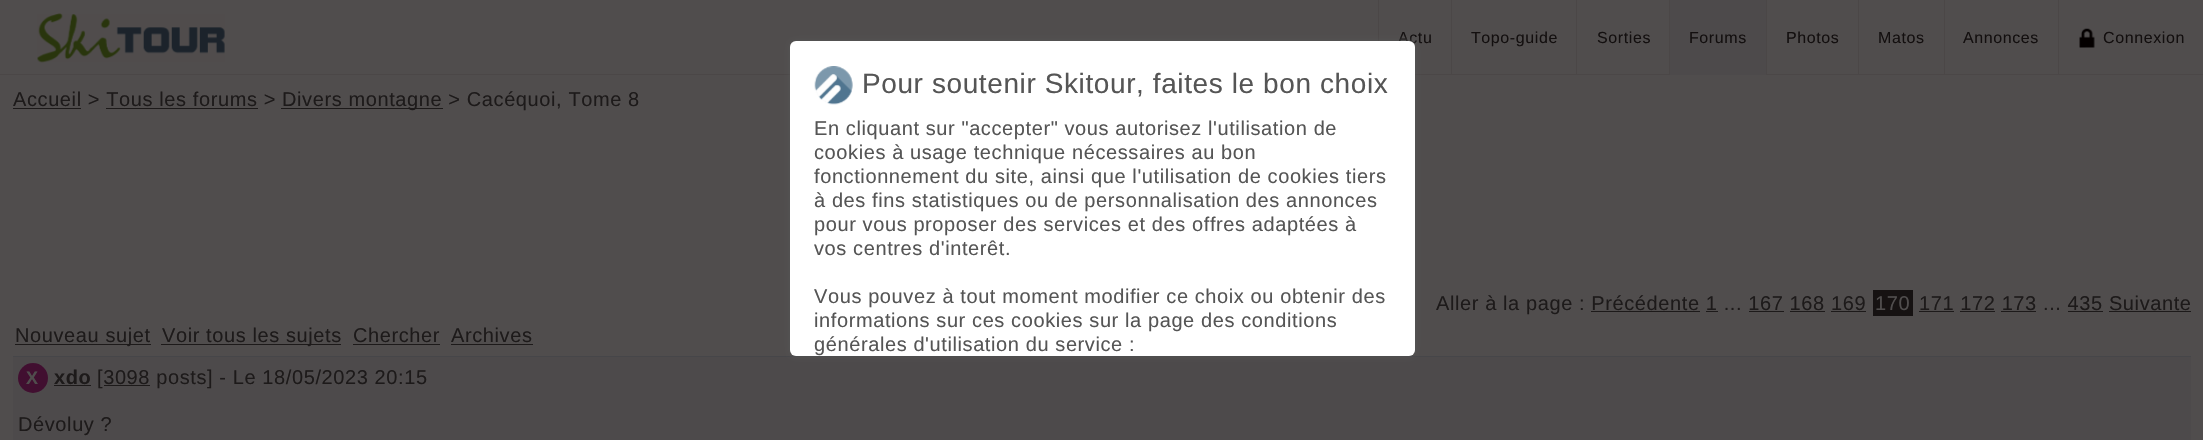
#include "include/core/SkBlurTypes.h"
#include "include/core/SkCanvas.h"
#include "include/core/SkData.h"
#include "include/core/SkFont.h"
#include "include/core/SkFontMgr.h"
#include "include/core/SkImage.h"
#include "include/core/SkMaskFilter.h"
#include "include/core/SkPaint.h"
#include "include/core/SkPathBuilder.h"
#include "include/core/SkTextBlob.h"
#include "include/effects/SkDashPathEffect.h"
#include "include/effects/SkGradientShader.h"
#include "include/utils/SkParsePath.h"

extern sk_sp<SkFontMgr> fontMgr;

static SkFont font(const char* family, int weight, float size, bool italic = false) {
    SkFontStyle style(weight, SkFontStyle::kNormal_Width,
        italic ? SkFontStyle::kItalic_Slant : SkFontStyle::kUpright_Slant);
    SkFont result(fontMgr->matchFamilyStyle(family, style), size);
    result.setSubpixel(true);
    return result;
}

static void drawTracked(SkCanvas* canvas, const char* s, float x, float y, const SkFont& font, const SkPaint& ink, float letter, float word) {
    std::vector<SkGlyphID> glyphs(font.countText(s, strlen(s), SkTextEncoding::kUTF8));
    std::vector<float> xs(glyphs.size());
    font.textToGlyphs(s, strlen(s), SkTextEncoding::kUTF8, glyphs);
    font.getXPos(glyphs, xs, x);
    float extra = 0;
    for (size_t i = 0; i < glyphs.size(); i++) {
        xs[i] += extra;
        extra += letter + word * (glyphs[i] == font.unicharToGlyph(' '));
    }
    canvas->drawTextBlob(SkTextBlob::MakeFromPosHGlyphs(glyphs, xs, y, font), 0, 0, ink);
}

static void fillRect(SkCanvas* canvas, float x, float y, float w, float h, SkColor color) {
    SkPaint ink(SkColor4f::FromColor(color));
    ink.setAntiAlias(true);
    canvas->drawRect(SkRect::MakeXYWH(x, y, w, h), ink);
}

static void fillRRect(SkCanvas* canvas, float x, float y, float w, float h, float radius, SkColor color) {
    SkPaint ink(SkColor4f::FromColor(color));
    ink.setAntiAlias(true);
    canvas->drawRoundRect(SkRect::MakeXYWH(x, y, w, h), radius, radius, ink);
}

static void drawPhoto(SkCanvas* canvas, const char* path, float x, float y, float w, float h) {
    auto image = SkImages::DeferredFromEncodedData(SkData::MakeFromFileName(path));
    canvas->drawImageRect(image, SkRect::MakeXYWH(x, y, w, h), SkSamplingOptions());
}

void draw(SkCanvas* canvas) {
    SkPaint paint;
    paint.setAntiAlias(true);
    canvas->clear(0xFF504D4D);
    fillRect(canvas, 0, 74, 2203, 1, 0xFF4B4747);
    drawPhoto(canvas, "assets/img1.png", 37, 13, 188, 50);
    fillRect(canvas, 1378, 0, 1, 41, 0xFF4B4747);
    SkFont font1 = font("Liberation Sans", 400, 16);
    paint.setColor(0xFF130F0F);
    drawTracked(canvas, "Actu", 1398, 43, font1, paint, 0.6f, 0);
    fillRect(canvas, 1451, 0, 1, 75, 0xFF4B4747);
    drawTracked(canvas, "Topo-guide", 1471, 43, font1, paint, 0.6f, 0);
    fillRect(canvas, 1576, 0, 1, 75, 0xFF4B4747);
    drawTracked(canvas, "Sorties", 1597, 43, font1, paint, 0.6f, 0);
    fillRect(canvas, 1670, 0, 96, 75, 0xFF4D4A4B);
    fillRect(canvas, 1669, 0, 1, 75, 0xFF4B4747);
    drawTracked(canvas, "Forums", 1689, 43, font1, paint, 0.6f, 0);
    fillRect(canvas, 1766, 0, 1, 75, 0xFF4B4747);
    drawTracked(canvas, "Photos", 1786, 43, font1, paint, 0.6f, 0);
    fillRect(canvas, 1858, 0, 1, 75, 0xFF4B4747);
    drawTracked(canvas, "Matos", 1878, 43, font1, paint, 0.6f, 0);
    fillRect(canvas, 1944, 0, 1, 75, 0xFF4B4747);
    drawTracked(canvas, "Annonces", 1963, 43, font1, paint, 0.6f, 0);
    fillRect(canvas, 2058, 0, 1, 75, 0xFF4B4747);
    drawPhoto(canvas, "assets/img2.png", 2079, 28, 16, 20);
    drawTracked(canvas, "Connexion", 2103, 43, font1, paint, 0.6f, 0);
    fillRect(canvas, 13, 357, 2178, 83, 0xFF4D4A4B);
    fillRect(canvas, 13, 356, 2178, 1, 0xFF464649);
    paint.setColor(0xFF555555);
    paint.setMaskFilter(SkMaskFilter::MakeBlur(kNormal_SkBlurStyle, 3));
    canvas->drawRoundRect(SkRect::MakeXYWH(790, 41, 625, 315), 6, 6, paint);
    paint.setMaskFilter(nullptr);
    fillRRect(canvas, 790, 41, 625, 315, 6, 0xFFFFFFFF);
    drawPhoto(canvas, "assets/img3.png", 814, 66, 39, 39);
    SkFont font2 = font("Liberation Sans", 400, 28);
    drawTracked(canvas, "Pour soutenir Skitour, faites le bon choix", 862, 93, font2, paint, 0.6f, 0);
    SkFont font3 = font("Liberation Sans", 400, 20);
    drawTracked(canvas, "En cliquant sur \"accepter\" vous autorisez l'utilisation de", 814, 135, font3, paint, 0.6f, 0);
    drawTracked(canvas, "cookies à usage technique nécessaires au bon", 814, 159, font3, paint, 0.6f, 0);
    drawTracked(canvas, "fonctionnement du site, ainsi que l'utilisation de cookies tiers", 814, 183, font3, paint, 0.6f, 0);
    drawTracked(canvas, "à des fins statistiques ou de personnalisation des annonces", 814, 207, font3, paint, 0.6f, 0);
    drawTracked(canvas, "pour vous proposer des services et des offres adaptées à", 814, 231, font3, paint, 0.6f, 0);
    drawTracked(canvas, "vos centres d'interêt.", 814, 255, font3, paint, 0.6f, 0);
    drawTracked(canvas, "Vous pouvez à tout moment modifier ce choix ou obtenir des", 814, 303, font3, paint, 0.6f, 0);
    drawTracked(canvas, "informations sur ces cookies sur la page des conditions", 814, 327, font3, paint, 0.6f, 0);
    drawTracked(canvas, "générales d'utilisation du service :", 814, 351, font3, paint, 0.6f, 0);
    paint.setColor(0xFF1D1A1A);
    drawTracked(canvas, "Accueil > Tous les forums >", 13, 106, font3, paint, 0.6f, 0);
    fillRect(canvas, 13, 108, 68, 1, 0xFF1D1A1A);
    fillRect(canvas, 281, 108, 162, 1, 0xFF1D1A1A);
    drawTracked(canvas, "Divers montagne > Cacéquoi, Tome 8", 282, 106, font3, paint, 0.6f, 0);
    fillRect(canvas, 106, 108, 152, 1, 0xFF1D1A1A);
    drawTracked(canvas, "Aller à la page : Précédente 1 ... 167 168 169", 1436, 310, font3, paint, 0.6f, 0);
    fillRect(canvas, 1873, 290, 40, 26, 0xFF161212);
    paint.setColor(0xFF504D4D);
    drawTracked(canvas, "170", 1875, 310, font3, paint, 0.6f, 0);
    paint.setColor(0xFF1D1A1A);
    drawTracked(canvas, "171 172 173 ... 435 Suivante", 1919, 310, font3, paint, 0.6f, 0);
    fillRect(canvas, 1919, 311, 35, 1, 0xFF1D1A1A);
    fillRect(canvas, 1591, 311, 109, 1, 0xFF1D1A1A);
    fillRect(canvas, 1706, 311, 12, 1, 0xFF1D1A1A);
    fillRect(canvas, 1749, 311, 35, 1, 0xFF1D1A1A);
    fillRect(canvas, 1790, 311, 35, 1, 0xFF1D1A1A);
    fillRect(canvas, 1831, 311, 35, 1, 0xFF1D1A1A);
    fillRect(canvas, 1960, 311, 35, 1, 0xFF1D1A1A);
    fillRect(canvas, 2001, 311, 35, 1, 0xFF1D1A1A);
    fillRect(canvas, 2068, 311, 35, 1, 0xFF1D1A1A);
    fillRect(canvas, 2109, 311, 82, 1, 0xFF1D1A1A);
    fillRect(canvas, 15, 344, 136, 1, 0xFF1D1A1A);
    drawTracked(canvas, "Nouveau sujet", 15, 342, font3, paint, 0.6f, 0);
    fillRect(canvas, 161, 344, 180, 1, 0xFF1D1A1A);
    drawTracked(canvas, "Voir tous les sujets", 162, 342, font3, paint, 0.6f, 0);
    drawTracked(canvas, "Chercher", 353, 342, font3, paint, 0.6f, 0);
    fillRect(canvas, 353, 344, 87, 1, 0xFF1D1A1A);
    drawTracked(canvas, "Archives", 451, 342, font3, paint, 0.6f, 0);
    fillRect(canvas, 451, 344, 82, 1, 0xFF1D1A1A);
    paint.setColor(0xFF410F30);
    canvas->drawCircle(33, 378, 15, paint);
    SkFont font4 = font("Liberation Sans", 700, 18);
    paint.setColor(0xFF504D4D);
    drawTracked(canvas, "X", 26, 384, font4, paint, 0.6f, 0);
    SkFont font5 = font("Liberation Sans", 700, 20);
    paint.setColor(0xFF1D1A1A);
    drawTracked(canvas, "xdo", 54, 384, font5, paint, 0.6f, 0);
    fillRect(canvas, 54, 385, 37, 1, 0xFF1D1A1A);
    drawTracked(canvas, "[3098 posts] - Le 18/05/2023 20:15", 97, 384, font3, paint, 0.6f, 0);
    fillRect(canvas, 104, 385, 46, 1, 0xFF1D1A1A);
    drawTracked(canvas, "Dévoluy ?", 18, 431, font3, paint, 0.6f, 0);
}
